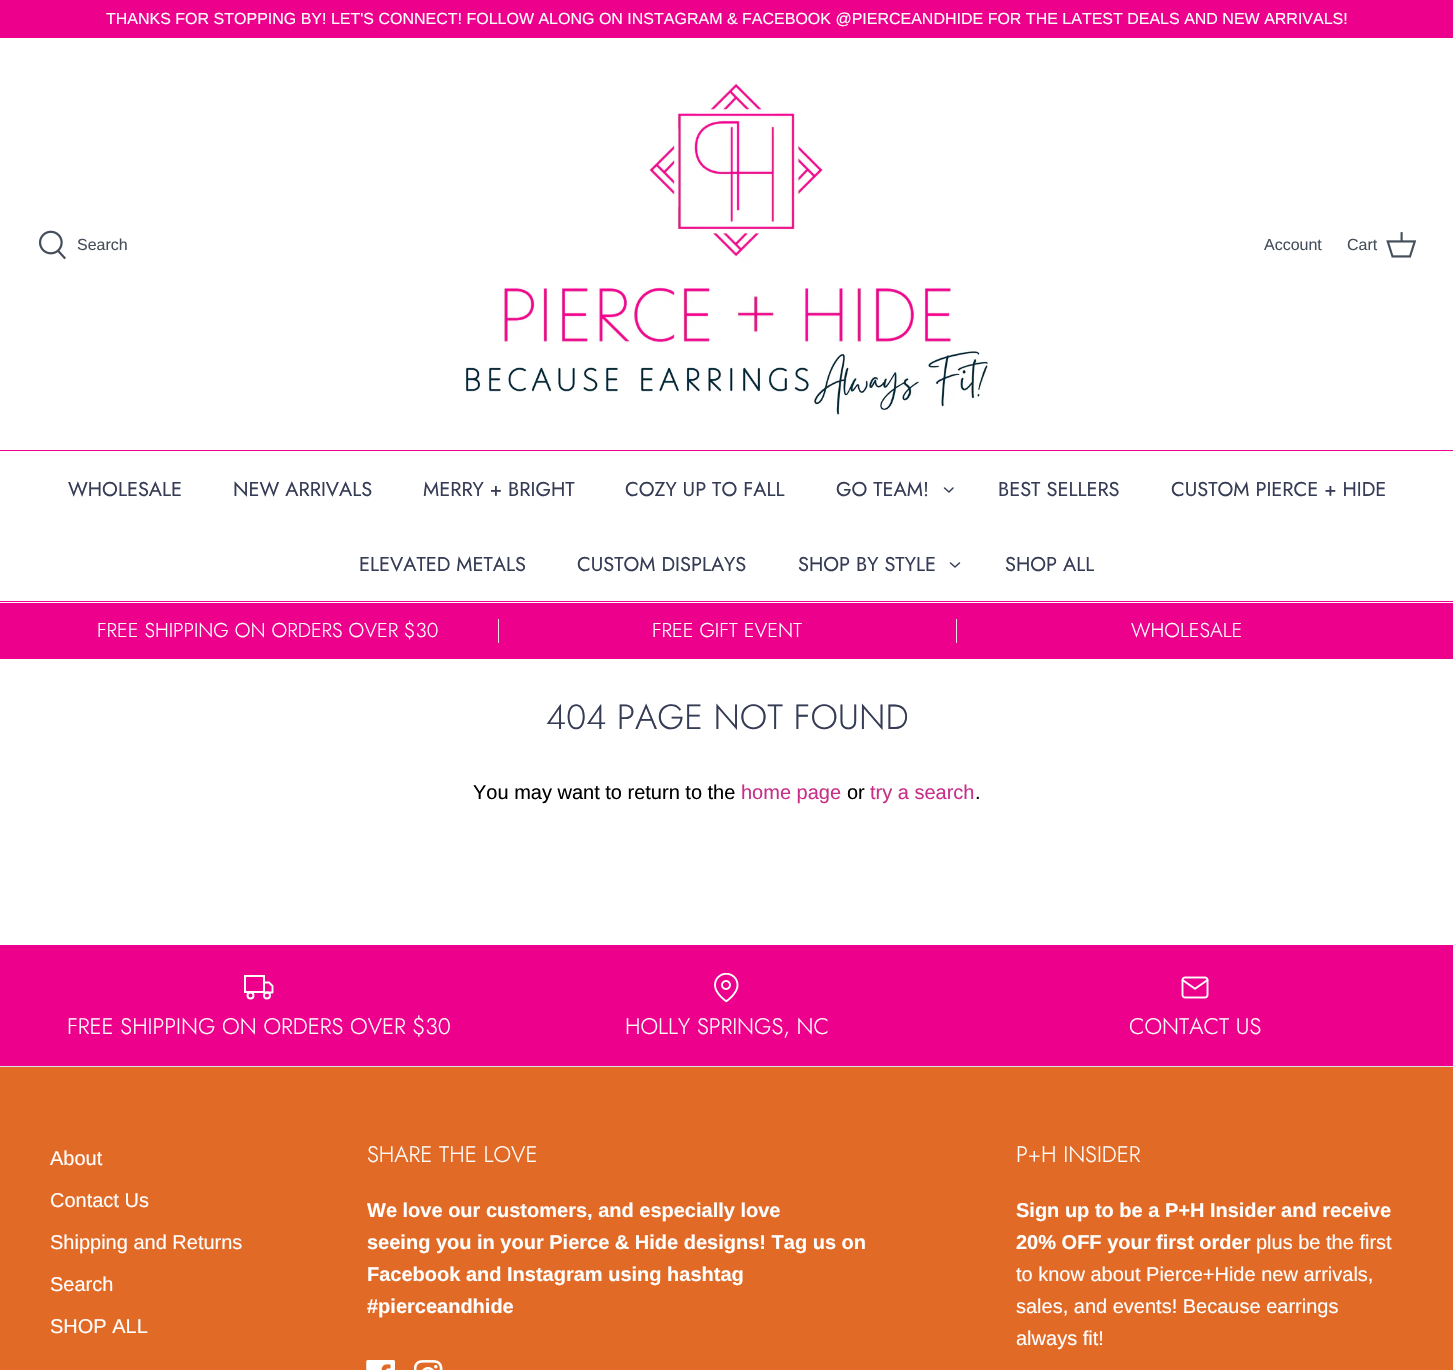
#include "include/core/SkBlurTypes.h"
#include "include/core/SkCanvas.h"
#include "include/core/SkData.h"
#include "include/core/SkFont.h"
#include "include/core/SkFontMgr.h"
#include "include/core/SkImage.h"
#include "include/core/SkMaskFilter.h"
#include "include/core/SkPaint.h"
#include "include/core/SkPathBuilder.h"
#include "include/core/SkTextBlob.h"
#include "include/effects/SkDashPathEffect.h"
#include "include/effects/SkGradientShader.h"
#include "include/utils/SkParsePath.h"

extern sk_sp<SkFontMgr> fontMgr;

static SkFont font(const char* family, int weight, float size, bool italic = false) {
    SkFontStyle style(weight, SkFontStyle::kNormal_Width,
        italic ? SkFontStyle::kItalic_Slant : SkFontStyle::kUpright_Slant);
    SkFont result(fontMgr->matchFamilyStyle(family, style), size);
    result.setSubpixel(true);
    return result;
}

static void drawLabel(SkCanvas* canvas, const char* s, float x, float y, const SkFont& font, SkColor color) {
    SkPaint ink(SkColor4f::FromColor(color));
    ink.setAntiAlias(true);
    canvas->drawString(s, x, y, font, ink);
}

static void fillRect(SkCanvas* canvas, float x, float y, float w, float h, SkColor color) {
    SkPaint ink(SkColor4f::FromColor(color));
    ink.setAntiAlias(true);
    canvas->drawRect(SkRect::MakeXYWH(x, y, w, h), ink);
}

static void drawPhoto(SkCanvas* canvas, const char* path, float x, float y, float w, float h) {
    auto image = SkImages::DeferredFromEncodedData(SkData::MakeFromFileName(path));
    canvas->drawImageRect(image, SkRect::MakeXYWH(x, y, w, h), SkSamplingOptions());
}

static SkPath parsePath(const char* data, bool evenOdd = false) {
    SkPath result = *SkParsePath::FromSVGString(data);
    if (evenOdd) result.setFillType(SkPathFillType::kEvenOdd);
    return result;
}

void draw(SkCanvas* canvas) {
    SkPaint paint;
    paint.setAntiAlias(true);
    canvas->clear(0xFFFFFFFF);
    fillRect(canvas, 0, 0, 1453, 38, 0xFFEC008C);
    SkFont font1 = font("Liberation Sans", 400, 16);
    drawLabel(canvas, "THANKS FOR STOPPING BY! LET'S CONNECT! FOLLOW ALONG ON INSTAGRAM & FACEBOOK @PIERCEANDHIDE FOR THE LATEST DEALS AND NEW ARRIVALS!", 106, 24, font1, 0xFFFFFFFF);
    fillRect(canvas, 0, 450, 1453, 1, 0xFFEC008C);
    drawPhoto(canvas, "assets/img1.png", 38, 230, 28, 30);
    drawLabel(canvas, "Search", 77, 250, font1, 0xFF454F5B);
    drawPhoto(canvas, "assets/img2.png", 465, 82, 523, 333);
    drawLabel(canvas, "Account", 1264, 250, font1, 0xFF454F5B);
    drawLabel(canvas, "Cart", 1347, 250, font1, 0xFF454F5B);
    drawPhoto(canvas, "assets/img3.png", 1386, 232, 30, 26);
    fillRect(canvas, 0, 601, 1453, 1, 0xFFEC008C);
    SkFont font2 = font("Jost", 400, 20);
    drawLabel(canvas, "WHOLESALE", 68, 496, font2, 0xFF363C55);
    drawLabel(canvas, "NEW ARRIVALS", 233, 496, font2, 0xFF363C55);
    drawLabel(canvas, "MERRY + BRIGHT", 423, 496, font2, 0xFF363C55);
    drawLabel(canvas, "COZY UP TO FALL", 625, 496, font2, 0xFF363C55);
    drawLabel(canvas, "GO TEAM!", 836, 496, font2, 0xFF363C55);
    paint.setStroke(true);
    paint.setStrokeWidth(1.5f);
    paint.setStrokeCap(SkPaint::kRound_Cap);
    paint.setStrokeJoin(SkPaint::kRound_Join);
    paint.setColor(0xFF363C55);
    canvas->drawPath(parsePath("M944.5 488L949 492L953 488"), paint);
    drawLabel(canvas, "BEST SELLERS", 998, 496, font2, 0xFF363C55);
    drawLabel(canvas, "CUSTOM PIERCE + HIDE", 1171, 496, font2, 0xFF363C55);
    drawLabel(canvas, "ELEVATED METALS", 359, 571, font2, 0xFF363C55);
    drawLabel(canvas, "CUSTOM DISPLAYS", 577, 571, font2, 0xFF363C55);
    drawLabel(canvas, "SHOP BY STYLE", 798, 571, font2, 0xFF363C55);
    canvas->drawPath(parsePath("M950.5 563L955 567L959.5 563"), paint);
    drawLabel(canvas, "SHOP ALL", 1005, 571, font2, 0xFF363C55);
    fillRect(canvas, 0, 603, 1453, 56, 0xFFEC008C);
    SkFont font3 = font("Jost", 300, 20);
    drawLabel(canvas, "FREE SHIPPING ON ORDERS OVER $30", 97, 637, font3, 0xFFFFFFFF);
    fillRect(canvas, 498, 619, 1, 24, 0xFFE2E2E2);
    drawLabel(canvas, "FREE GIFT EVENT", 652, 637, font3, 0xFFFFFFFF);
    fillRect(canvas, 956, 619, 1, 24, 0xFFE2E2E2);
    drawLabel(canvas, "WHOLESALE", 1131, 637, font3, 0xFFFFFFFF);
    SkFont font4 = font("Jost", 300, 35);
    drawLabel(canvas, "404 PAGE NOT FOUND", 546, 729, font4, 0xFF363C55);
    SkFont font5 = font("Liberation Sans", 400, 20);
    drawLabel(canvas, "You may want to return to the", 473, 799, font5, 0xFF000000);
    drawLabel(canvas, "home page", 741, 799, font5, 0xFFC72F89);
    drawLabel(canvas, "or", 847, 799, font5, 0xFF000000);
    drawLabel(canvas, "try a search", 870, 799, font5, 0xFFC72F89);
    drawLabel(canvas, ".", 975, 799, font5, 0xFF000000);
    fillRect(canvas, 0, 1067, 1453, 303, 0xFFE16A27);
    fillRect(canvas, 0, 945, 1453, 121, 0xFFEC008C);
    paint.setStrokeWidth(2);
    paint.setStrokeCap(SkPaint::kButt_Cap);
    paint.setStrokeJoin(SkPaint::kMiter_Join);
    paint.setColor(0xFFFFFFFF);
    canvas->drawRect(SkRect::MakeXYWH(245, 976, 19, 16), paint);
    paint.setStrokeWidth(1.9f);
    paint.setStrokeCap(SkPaint::kRound_Cap);
    paint.setStrokeJoin(SkPaint::kRound_Join);
    canvas->drawPath(parsePath("M264 982.5H269L272.5 986V992.5H264Z"), paint);
    paint.setStrokeCap(SkPaint::kButt_Cap);
    paint.setStrokeJoin(SkPaint::kMiter_Join);
    canvas->drawCircle(250.5f, 995.5f, 3, paint);
    canvas->drawCircle(267, 995.5f, 3, paint);
    SkFont font6 = font("Jost", 300, 22.5f);
    drawLabel(canvas, "FREE SHIPPING ON ORDERS OVER $30", 67, 1034, font6, 0xFFFFFFFF);
    drawPhoto(canvas, "assets/img4.png", 714, 973, 25, 30);
    drawLabel(canvas, "HOLLY SPRINGS, NC", 625, 1034, font6, 0xFFFFFFFF);
    drawPhoto(canvas, "assets/img5.png", 1181, 976, 28, 23);
    drawLabel(canvas, "CONTACT US", 1129, 1034, font6, 0xFFFFFFFF);
    fillRect(canvas, 0, 1066, 1453, 1, 0xFFDFE3E8);
    drawLabel(canvas, "About", 50, 1165, font5, 0xFFFFFFFF);
    drawLabel(canvas, "Contact Us", 50, 1207, font5, 0xFFFFFFFF);
    drawLabel(canvas, "Shipping and Returns", 50, 1249, font5, 0xFFFFFFFF);
    drawLabel(canvas, "Search", 50, 1291, font5, 0xFFFFFFFF);
    drawLabel(canvas, "SHOP ALL", 50, 1333, font5, 0xFFFFFFFF);
    drawLabel(canvas, "SHARE THE LOVE", 367, 1162, font6, 0xFFFFFFFF);
    SkFont font7 = font("Liberation Sans", 700, 20);
    drawLabel(canvas, "We love our customers, and especially love", 367, 1217, font7, 0xFFFFFFFF);
    drawLabel(canvas, "seeing you in your Pierce & Hide designs! Tag us on", 367, 1249, font7, 0xFFFFFFFF);
    drawLabel(canvas, "Facebook and Instagram using hashtag", 367, 1281, font7, 0xFFFFFFFF);
    drawLabel(canvas, "#pierceandhide", 367, 1313, font7, 0xFFFFFFFF);
    drawPhoto(canvas, "assets/img6.png", 366, 1360, 29, 10);
    drawPhoto(canvas, "assets/img7.png", 414, 1360, 29, 10);
    drawLabel(canvas, "P+H INSIDER", 1016, 1162, font6, 0xFFFFFFFF);
    drawLabel(canvas, "Sign up to be a P+H Insider and receive", 1016, 1217, font7, 0xFFFFFFFF);
    drawLabel(canvas, "20% OFF your first order", 1016, 1249, font7, 0xFFFFFFFF);
    drawLabel(canvas, "plus be the first", 1256, 1249, font5, 0xFFFFFFFF);
    drawLabel(canvas, "to know about Pierce+Hide new arrivals,", 1016, 1281, font5, 0xFFFFFFFF);
    drawLabel(canvas, "sales, and events! Because earrings", 1016, 1313, font5, 0xFFFFFFFF);
    drawLabel(canvas, "always fit!", 1016, 1345, font5, 0xFFFFFFFF);
}
